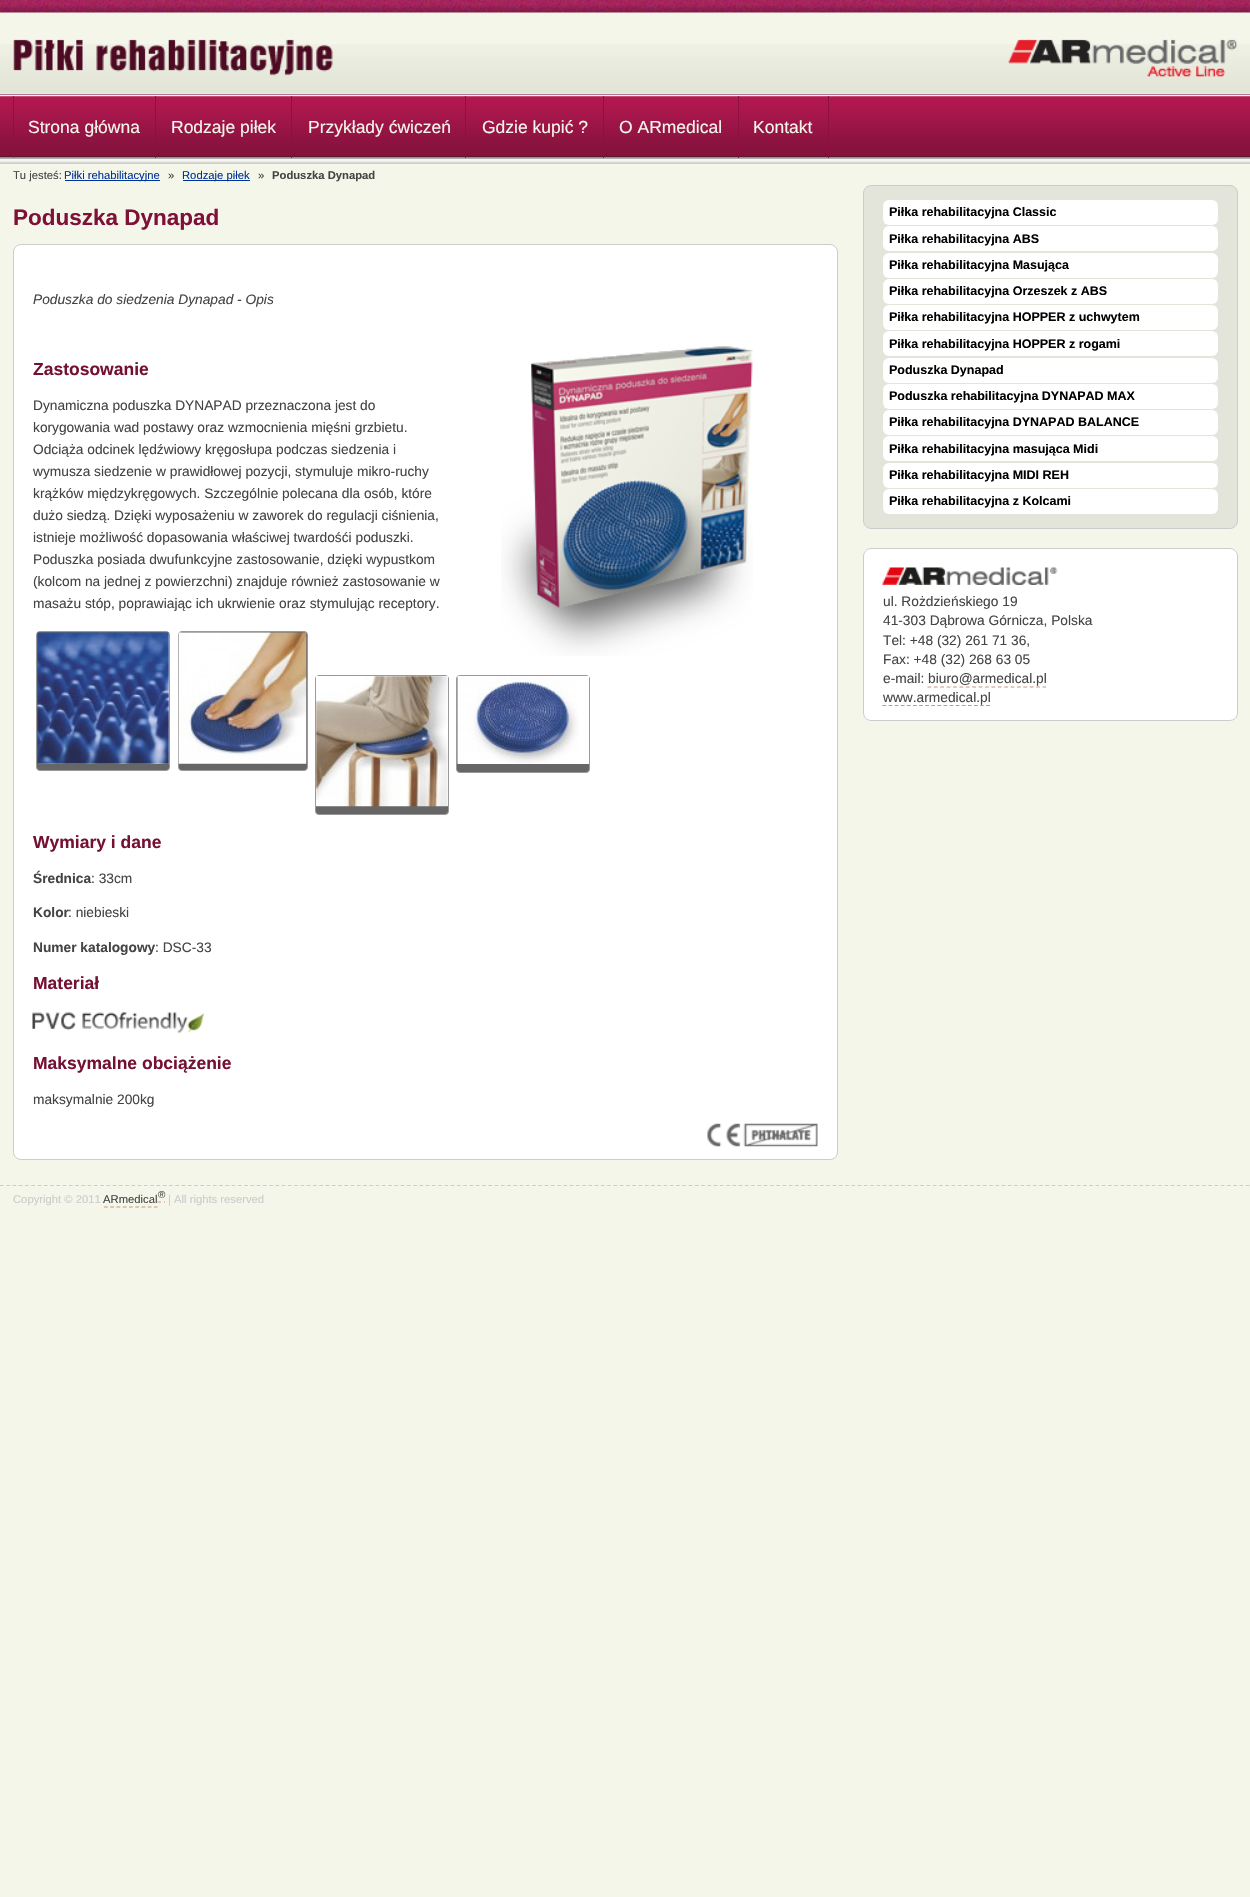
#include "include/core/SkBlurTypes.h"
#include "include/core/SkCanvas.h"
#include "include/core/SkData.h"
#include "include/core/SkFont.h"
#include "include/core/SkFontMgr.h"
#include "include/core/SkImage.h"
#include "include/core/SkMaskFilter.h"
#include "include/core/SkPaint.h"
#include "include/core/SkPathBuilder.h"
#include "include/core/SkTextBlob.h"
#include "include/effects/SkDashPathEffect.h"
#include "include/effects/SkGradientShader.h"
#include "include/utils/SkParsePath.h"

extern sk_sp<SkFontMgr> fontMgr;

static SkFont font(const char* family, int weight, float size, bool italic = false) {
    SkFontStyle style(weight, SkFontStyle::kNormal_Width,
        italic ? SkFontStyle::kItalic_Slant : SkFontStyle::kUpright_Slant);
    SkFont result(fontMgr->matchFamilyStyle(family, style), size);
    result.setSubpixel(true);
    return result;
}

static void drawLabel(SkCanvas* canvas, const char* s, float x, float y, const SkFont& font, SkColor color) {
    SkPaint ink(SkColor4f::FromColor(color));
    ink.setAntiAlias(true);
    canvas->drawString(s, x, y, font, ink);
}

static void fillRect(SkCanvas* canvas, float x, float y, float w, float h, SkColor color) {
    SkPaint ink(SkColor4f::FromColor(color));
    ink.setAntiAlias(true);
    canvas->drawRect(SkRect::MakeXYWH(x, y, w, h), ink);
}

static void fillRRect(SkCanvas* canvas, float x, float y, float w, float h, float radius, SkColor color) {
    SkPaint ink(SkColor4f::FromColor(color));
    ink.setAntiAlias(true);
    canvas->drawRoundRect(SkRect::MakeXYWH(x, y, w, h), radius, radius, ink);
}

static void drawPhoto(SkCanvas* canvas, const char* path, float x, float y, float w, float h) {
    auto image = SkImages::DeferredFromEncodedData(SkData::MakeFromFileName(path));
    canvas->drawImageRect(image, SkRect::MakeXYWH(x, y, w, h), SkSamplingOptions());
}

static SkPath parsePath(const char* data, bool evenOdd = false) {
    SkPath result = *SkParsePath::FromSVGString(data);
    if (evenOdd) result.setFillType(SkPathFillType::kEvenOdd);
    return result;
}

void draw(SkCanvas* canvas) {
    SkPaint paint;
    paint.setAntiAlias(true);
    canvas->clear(0xFFF5F6EA);
    drawPhoto(canvas, "assets/img1.png", 0, 0, 1250, 13);
    drawPhoto(canvas, "assets/img2.png", 0, 44, 1250, 50);
    fillRect(canvas, 0, 94, 1250, 1, 0xFFB17690);
    drawPhoto(canvas, "assets/img3.png", 1008, 39, 229, 38);
    drawPhoto(canvas, "assets/img4.png", 13, 39, 320, 37);
    drawPhoto(canvas, "assets/img5.png", 0, 96, 1250, 62);
    fillRect(canvas, 13, 96, 1, 62, 0xFF8D1140);
    drawPhoto(canvas, "assets/img6.png", 0, 157, 1250, 7);
    fillRect(canvas, 155, 96, 1, 62, 0xFF8D1140);
    SkFont font1 = font("Liberation Sans", 400, 17.5f);
    drawLabel(canvas, "Strona główna", 28, 133, font1, 0xFFF5F6EA);
    fillRect(canvas, 291, 96, 1, 62, 0xFF8D1140);
    drawLabel(canvas, "Rodzaje piłek", 171, 133, font1, 0xFFF5F6EA);
    fillRect(canvas, 465, 96, 1, 62, 0xFF8D1140);
    drawLabel(canvas, "Przykłady ćwiczeń", 308, 133, font1, 0xFFF5F6EA);
    fillRect(canvas, 603, 96, 1, 62, 0xFF8D1140);
    drawLabel(canvas, "Gdzie kupić ?", 482, 133, font1, 0xFFF5F6EA);
    fillRect(canvas, 738, 96, 1, 62, 0xFF8D1140);
    drawLabel(canvas, "O ARmedical", 619, 133, font1, 0xFFF5F6EA);
    fillRect(canvas, 828, 96, 1, 62, 0xFF8D1140);
    drawLabel(canvas, "Kontakt", 753, 133, font1, 0xFFF5F6EA);
    SkFont font2 = font("Liberation Sans", 400, 11.25f);
    drawLabel(canvas, "Tu jesteś:", 13, 179, font2, 0xFF444444);
    fillRect(canvas, 65, 180, 95, 1, 0xFF003399);
    drawLabel(canvas, "Piłki rehabilitacyjne", 64, 179, font2, 0xFF003399);
    drawLabel(canvas, "»", 168, 179, font2, 0xFF444444);
    fillRect(canvas, 183, 180, 67, 1, 0xFF003399);
    drawLabel(canvas, "Rodzaje piłek", 182, 179, font2, 0xFF003399);
    drawLabel(canvas, "»", 258, 179, font2, 0xFF444444);
    SkFont font3 = font("Liberation Sans", 700, 11.25f);
    drawLabel(canvas, "Poduszka Dynapad", 272, 179, font3, 0xFF444444);
    SkFont font4 = font("Liberation Sans", 700, 22.5f);
    drawLabel(canvas, "Poduszka Dynapad", 13, 225, font4, 0xFF7F1139);
    paint.setColor(0xFFFFFFFF);
    canvas->drawRoundRect(SkRect::MakeXYWH(13.5f, 244.5f, 824, 915), 7.5f, 7.5f, paint);
    paint.setStroke(true);
    paint.setStrokeWidth(1);
    paint.setColor(0xFFCCCCCC);
    canvas->drawRoundRect(SkRect::MakeXYWH(13.5f, 244.5f, 824, 915), 7.5f, 7.5f, paint);
    SkFont font5 = font("Liberation Sans", 400, 13.75f, true);
    drawLabel(canvas, "Poduszka do siedzenia Dynapad - Opis", 33, 304, font5, 0xFF444444);
    drawPhoto(canvas, "assets/img7.png", 501, 346, 252, 310);
    SkFont font6 = font("Liberation Sans", 700, 17.5f);
    drawLabel(canvas, "Zastosowanie", 33, 375, font6, 0xFF741034);
    SkFont font7 = font("Liberation Sans", 400, 13.75f);
    drawLabel(canvas, "Dynamiczna poduszka DYNAPAD przeznaczona jest do", 33, 410, font7, 0xFF444444);
    drawLabel(canvas, "korygowania wad postawy oraz wzmocnienia mięśni grzbietu.", 33, 432, font7, 0xFF444444);
    drawLabel(canvas, "Odciąża odcinek lędźwiowy kręgosłupa podczas siedzenia i", 33, 454, font7, 0xFF444444);
    drawLabel(canvas, "wymusza siedzenie w prawidłowej pozycji, stymuluje mikro-ruchy", 33, 476, font7, 0xFF444444);
    drawLabel(canvas, "krążków międzykręgowych. Szczególnie polecana dla osób, które", 33, 498, font7, 0xFF444444);
    drawLabel(canvas, "dużo siedzą. Dzięki wyposażeniu w zaworek do regulacji ciśnienia,", 33, 520, font7, 0xFF444444);
    drawLabel(canvas, "istnieje możliwość dopasowania właściwej twardośći poduszki.", 33, 542, font7, 0xFF444444);
    drawLabel(canvas, "Poduszka posiada dwufunkcyjne zastosowanie, dzięki wypustkom", 33, 564, font7, 0xFF444444);
    drawLabel(canvas, "(kolcom na jednej z powierzchni) znajduje również zastosowanie w", 33, 586, font7, 0xFF444444);
    drawLabel(canvas, "masażu stóp, poprawiając ich ukrwienie oraz stymulując receptory.", 33, 608, font7, 0xFF444444);
    paint.setStroke(false);
    paint.setColor(0xFF666666);
    canvas->drawRoundRect(SkRect::MakeXYWH(36.5f, 631.5f, 133, 139), 3.5f, 3.5f, paint);
    paint.setStroke(true);
    paint.setColor(0xFF999999);
    canvas->drawRoundRect(SkRect::MakeXYWH(36.5f, 631.5f, 133, 139), 3.5f, 3.5f, paint);
    fillRect(canvas, 38, 633, 131, 131, 0xFFFFFFFF);
    drawPhoto(canvas, "assets/img8.png", 37, 632, 132, 132);
    paint.setStroke(false);
    paint.setColor(0xFF666666);
    canvas->drawRoundRect(SkRect::MakeXYWH(178.5f, 631.5f, 129, 139), 3.5f, 3.5f, paint);
    paint.setStroke(true);
    paint.setColor(0xFF999999);
    canvas->drawRoundRect(SkRect::MakeXYWH(178.5f, 631.5f, 129, 139), 3.5f, 3.5f, paint);
    drawPhoto(canvas, "assets/img9.png", 178, 632, 129, 132);
    paint.setStroke(false);
    paint.setColor(0xFF666666);
    canvas->drawRoundRect(SkRect::MakeXYWH(315.5f, 675.5f, 133, 139), 3.5f, 3.5f, paint);
    paint.setStroke(true);
    paint.setColor(0xFF999999);
    canvas->drawRoundRect(SkRect::MakeXYWH(315.5f, 675.5f, 133, 139), 3.5f, 3.5f, paint);
    fillRect(canvas, 316, 676, 132, 130, 0xFFFFFFFF);
    drawPhoto(canvas, "assets/img10.png", 316, 676, 132, 131);
    paint.setStroke(false);
    paint.setColor(0xFF666666);
    canvas->drawRoundRect(SkRect::MakeXYWH(456.5f, 675.5f, 133, 97), 3.5f, 3.5f, paint);
    paint.setStroke(true);
    paint.setColor(0xFF999999);
    canvas->drawRoundRect(SkRect::MakeXYWH(456.5f, 675.5f, 133, 97), 3.5f, 3.5f, paint);
    fillRect(canvas, 458, 676, 131, 88, 0xFFFFFFFF);
    drawPhoto(canvas, "assets/img11.png", 457, 676, 122, 88);
    drawLabel(canvas, "Wymiary i dane", 33, 848, font6, 0xFF741034);
    SkFont font8 = font("Liberation Sans", 700, 13.75f);
    drawLabel(canvas, "Średnica", 33, 883, font8, 0xFF444444);
    drawLabel(canvas, ": 33cm", 91, 883, font7, 0xFF444444);
    drawLabel(canvas, "Kolor", 33, 917, font8, 0xFF444444);
    drawLabel(canvas, ": niebieski", 68, 917, font7, 0xFF444444);
    drawLabel(canvas, "Numer katalogowy", 33, 952, font8, 0xFF444444);
    drawLabel(canvas, ": DSC-33", 155, 952, font7, 0xFF444444);
    drawLabel(canvas, "Materiał", 33, 989, font6, 0xFF741034);
    drawPhoto(canvas, "assets/img12.png", 32, 1012, 172, 21);
    drawLabel(canvas, "Maksymalne obciążenie", 33, 1069, font6, 0xFF741034);
    drawLabel(canvas, "maksymalnie 200kg", 33, 1104, font7, 0xFF444444);
    drawPhoto(canvas, "assets/img13.png", 707, 1123, 111, 24);
    paint.setStroke(false);
    paint.setColor(0xFFE4E5DA);
    canvas->drawRoundRect(SkRect::MakeXYWH(863.5f, 185.5f, 374, 343), 7.5f, 7.5f, paint);
    paint.setStroke(true);
    paint.setColor(0xFFCCCCCC);
    canvas->drawRoundRect(SkRect::MakeXYWH(863.5f, 185.5f, 374, 343), 7.5f, 7.5f, paint);
    fillRRect(canvas, 883, 200, 335, 25, 6, 0xFFFFFFFF);
    SkFont font9 = font("Liberation Sans", 700, 12.5f);
    drawLabel(canvas, "Piłka rehabilitacyjna Classic", 889, 216, font9, 0xFF000000);
    fillRRect(canvas, 883, 226, 335, 25, 6, 0xFFFFFFFF);
    drawLabel(canvas, "Piłka rehabilitacyjna ABS", 889, 243, font9, 0xFF000000);
    fillRRect(canvas, 883, 253, 335, 25, 6, 0xFFFFFFFF);
    drawLabel(canvas, "Piłka rehabilitacyjna Masująca", 889, 269, font9, 0xFF000000);
    fillRRect(canvas, 883, 279, 335, 25, 6, 0xFFFFFFFF);
    drawLabel(canvas, "Piłka rehabilitacyjna Orzeszek z ABS", 889, 295, font9, 0xFF000000);
    fillRRect(canvas, 883, 305, 335, 25, 6, 0xFFFFFFFF);
    drawLabel(canvas, "Piłka rehabilitacyjna HOPPER z uchwytem", 889, 321, font9, 0xFF000000);
    fillRRect(canvas, 883, 331, 335, 25, 6, 0xFFFFFFFF);
    drawLabel(canvas, "Piłka rehabilitacyjna HOPPER z rogami", 889, 348, font9, 0xFF000000);
    fillRRect(canvas, 883, 358, 335, 25, 6, 0xFFFFFFFF);
    drawLabel(canvas, "Poduszka Dynapad", 889, 374, font9, 0xFF000000);
    fillRRect(canvas, 883, 384, 335, 25, 6, 0xFFFFFFFF);
    drawLabel(canvas, "Poduszka rehabilitacyjna DYNAPAD MAX", 889, 400, font9, 0xFF000000);
    fillRRect(canvas, 883, 410, 335, 25, 6, 0xFFFFFFFF);
    drawLabel(canvas, "Piłka rehabilitacyjna DYNAPAD BALANCE", 889, 426, font9, 0xFF000000);
    fillRRect(canvas, 883, 436, 335, 25, 6, 0xFFFFFFFF);
    drawLabel(canvas, "Piłka rehabilitacyjna masująca Midi", 889, 453, font9, 0xFF000000);
    fillRRect(canvas, 883, 463, 335, 25, 6, 0xFFFFFFFF);
    drawLabel(canvas, "Piłka rehabilitacyjna MIDI REH", 889, 479, font9, 0xFF000000);
    fillRRect(canvas, 883, 489, 335, 25, 6, 0xFFFFFFFF);
    drawLabel(canvas, "Piłka rehabilitacyjna z Kolcami", 889, 505, font9, 0xFF000000);
    fillRRect(canvas, 863, 548, 375, 173, 8, 0xFFFFFFFF);
    drawPhoto(canvas, "assets/img14.png", 882, 567, 176, 18);
    canvas->drawRoundRect(SkRect::MakeXYWH(863.5f, 548.5f, 374, 172), 7.5f, 7.5f, paint);
    drawLabel(canvas, "ul. Rożdzieńskiego 19", 883, 606, font7, 0xFF444444);
    drawLabel(canvas, "41-303 Dąbrowa Górnicza, Polska", 883, 625, font7, 0xFF444444);
    drawLabel(canvas, "Tel: +48 (32) 261 71 36,", 883, 645, font7, 0xFF444444);
    drawLabel(canvas, "Fax: +48 (32) 268 63 05", 883, 664, font7, 0xFF444444);
    drawLabel(canvas, "e-mail: biuro@armedical.pl", 883, 683, font7, 0xFF444444);
    paint.setStrokeWidth(1.2f);
    paint.setColor(0xFFCA947C);
    paint.setPathEffect(SkDashPathEffect::Make({{3.75f, 2.64f}}, 0));
    canvas->drawPath(parsePath("M927.5 687H1046"), paint);
    paint.setPathEffect(nullptr);
    paint.setPathEffect(SkDashPathEffect::Make({{3.75f, 2.35f}}, 0));
    canvas->drawPath(parsePath("M882.5 705.5H990"), paint);
    paint.setPathEffect(nullptr);
    drawLabel(canvas, "www.armedical.pl", 883, 702, font7, 0xFF444444);
    paint.setColor(0xFFCCCCCC);
    paint.setPathEffect(SkDashPathEffect::Make({{3.75f, 2.51f}}, 0));
    canvas->drawPath(parsePath("M0 1185.5H1250"), paint);
    paint.setPathEffect(nullptr);
    drawLabel(canvas, "Copyright © 2011", 13, 1203, font2, 0xFFCCCCCC);
    drawLabel(canvas, "ARmedical", 103, 1203, font2, 0xFF444444);
    paint.setColor(0xFFCA947C);
    paint.setPathEffect(SkDashPathEffect::Make({{3.75f, 2.5f}}, 0));
    canvas->drawPath(parsePath("M104 1207H157.5"), paint);
    paint.setPathEffect(nullptr);
    canvas->drawPath(parsePath("M157.5 1202H161M164 1202H165"), paint);
    SkFont font10 = font("Liberation Sans", 400, 10);
    drawLabel(canvas, "®", 158, 1198, font10, 0xFF444444);
    drawLabel(canvas, "| All rights reserved", 168, 1203, font2, 0xFFCCCCCC);
}
